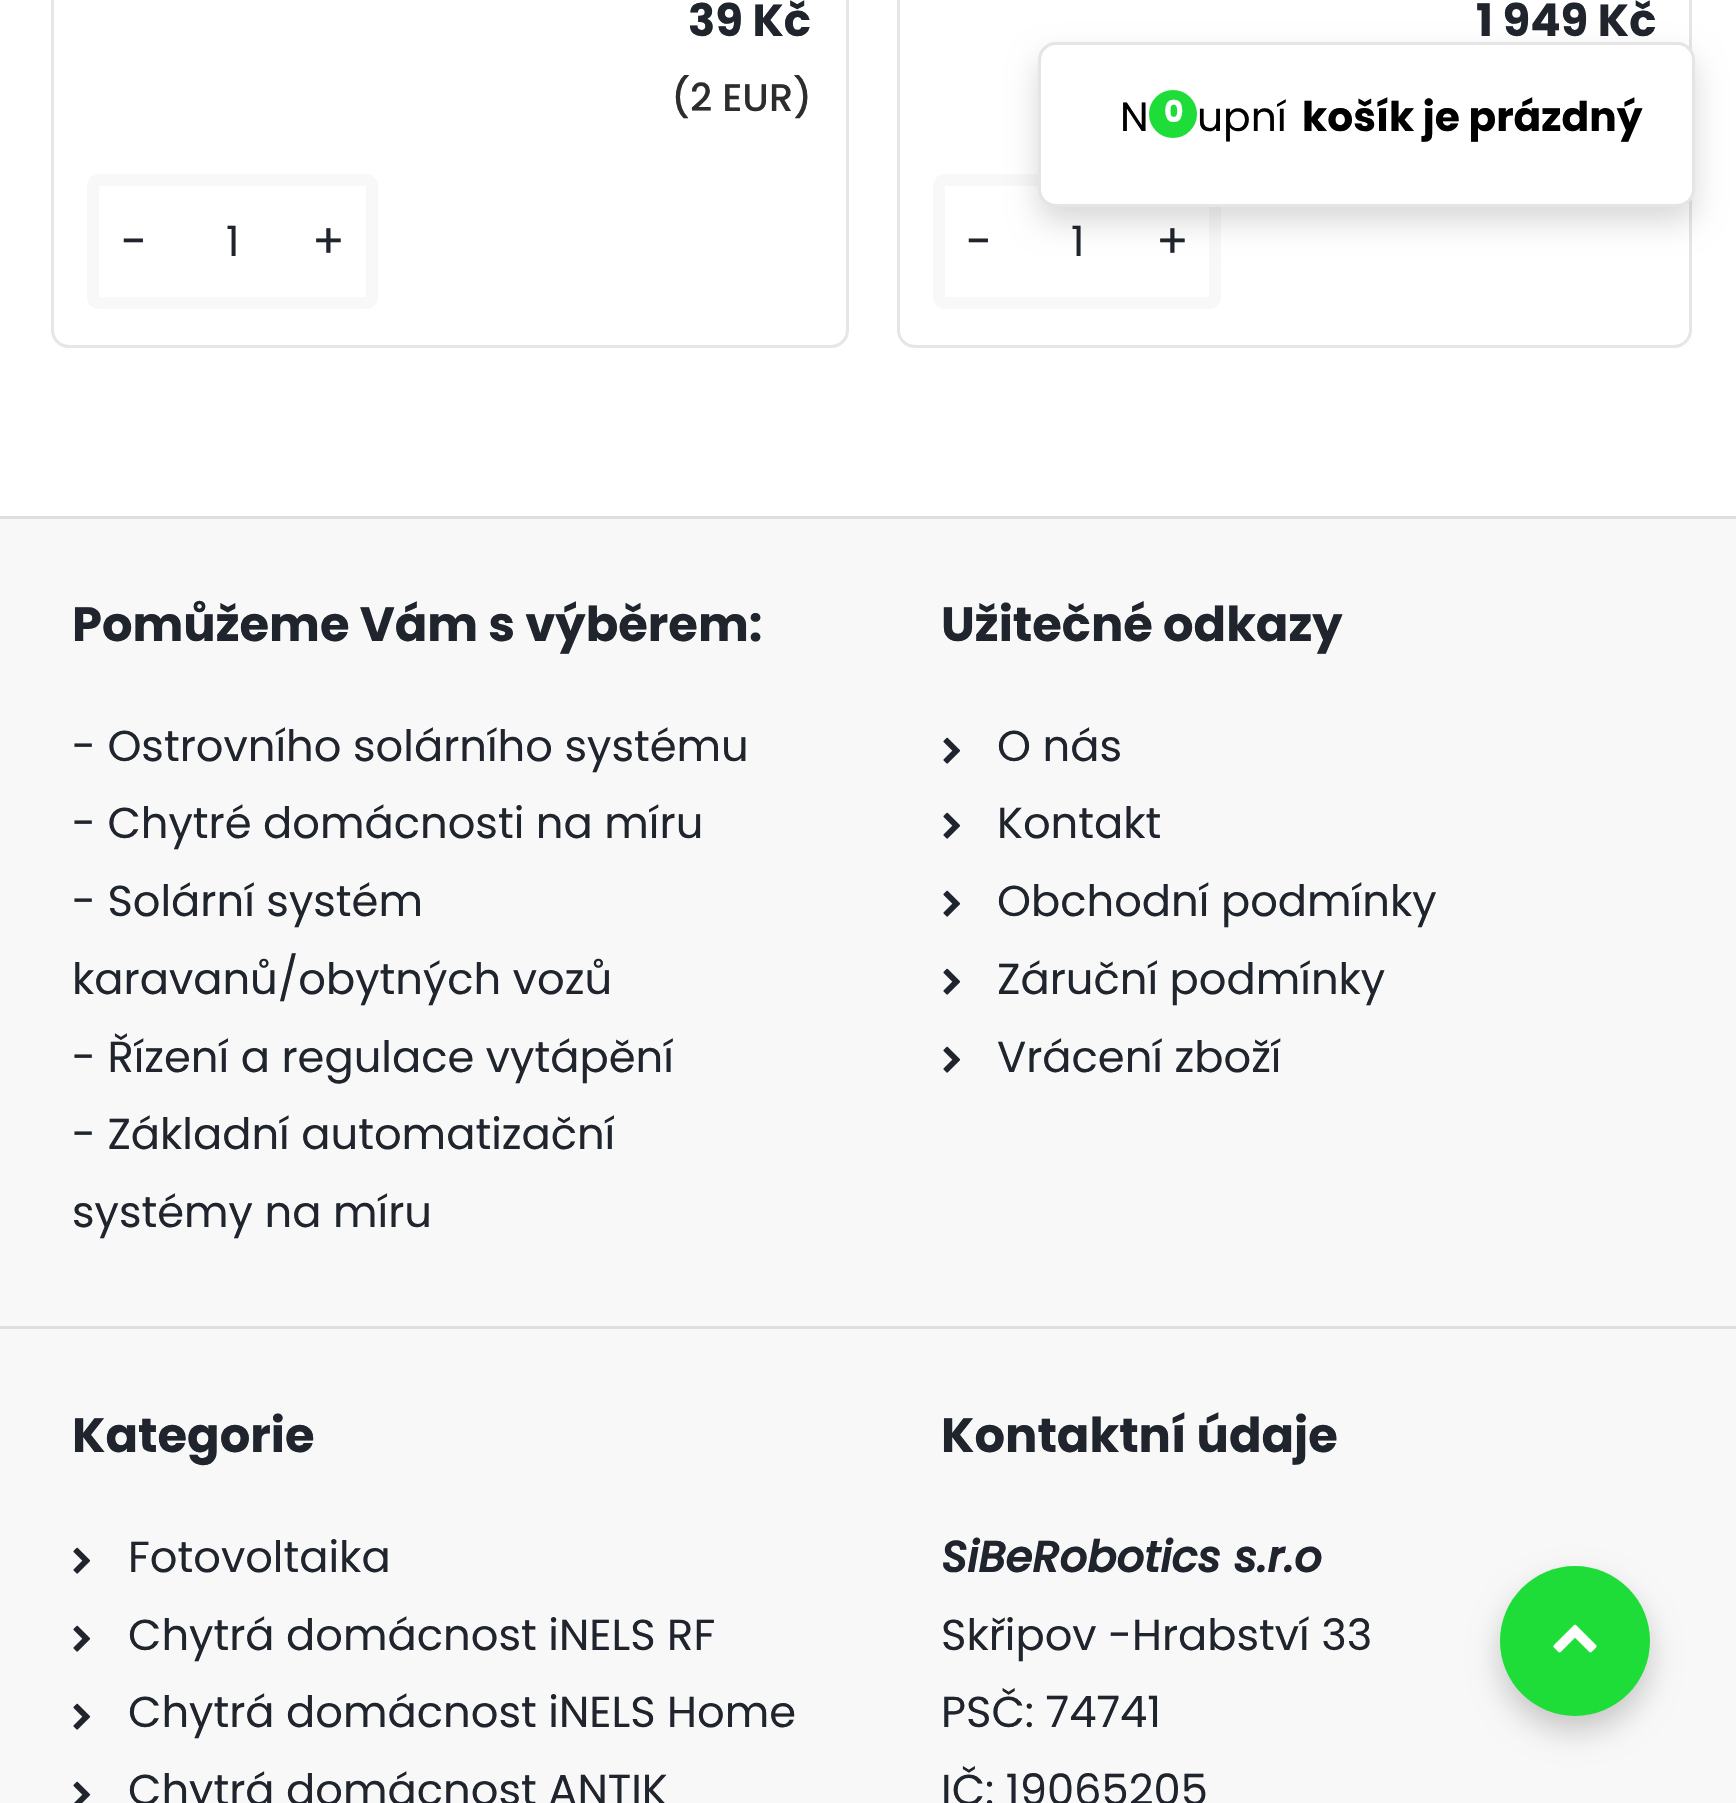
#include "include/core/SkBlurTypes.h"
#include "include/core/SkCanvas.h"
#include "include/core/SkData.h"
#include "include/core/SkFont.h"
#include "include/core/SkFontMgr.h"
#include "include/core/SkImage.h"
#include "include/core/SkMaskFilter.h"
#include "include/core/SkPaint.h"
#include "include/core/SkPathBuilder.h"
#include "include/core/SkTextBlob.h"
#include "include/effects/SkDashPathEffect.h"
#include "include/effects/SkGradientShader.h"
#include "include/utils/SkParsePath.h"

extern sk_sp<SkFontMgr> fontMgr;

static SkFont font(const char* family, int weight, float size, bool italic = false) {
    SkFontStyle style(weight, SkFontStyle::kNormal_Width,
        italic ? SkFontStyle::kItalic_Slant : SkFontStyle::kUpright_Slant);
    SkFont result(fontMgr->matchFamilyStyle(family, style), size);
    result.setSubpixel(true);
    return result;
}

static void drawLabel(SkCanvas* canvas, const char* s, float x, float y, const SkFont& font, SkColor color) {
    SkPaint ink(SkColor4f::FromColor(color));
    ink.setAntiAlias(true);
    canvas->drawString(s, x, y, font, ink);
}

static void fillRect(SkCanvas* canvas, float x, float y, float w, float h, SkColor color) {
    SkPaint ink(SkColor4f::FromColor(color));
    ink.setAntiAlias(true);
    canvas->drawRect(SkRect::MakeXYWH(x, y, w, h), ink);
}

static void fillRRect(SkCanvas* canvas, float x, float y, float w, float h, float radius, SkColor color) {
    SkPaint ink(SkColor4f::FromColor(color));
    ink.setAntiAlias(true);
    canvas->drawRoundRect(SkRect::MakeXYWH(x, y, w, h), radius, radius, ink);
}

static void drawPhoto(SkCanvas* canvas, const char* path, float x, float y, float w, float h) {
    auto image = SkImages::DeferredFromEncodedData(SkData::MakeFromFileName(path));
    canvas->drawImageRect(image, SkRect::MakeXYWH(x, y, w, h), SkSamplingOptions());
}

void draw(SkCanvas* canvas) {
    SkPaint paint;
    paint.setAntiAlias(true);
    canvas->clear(0xFFFFFFFF);
    paint.setStroke(true);
    paint.setStrokeWidth(3);
    paint.setColor(0xFFE6E6E6);
    canvas->drawRoundRect(SkRect::MakeXYWH(52.5f, -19.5f, 795, 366), 16.5f, 16.5f, paint);
    SkFont font1 = font("Poppins", 700, 45);
    drawLabel(canvas, "39 Kč", 688, 36, font1, 0xFF1F242D);
    SkFont font2 = font("Poppins", 500, 38.5f);
    drawLabel(canvas, "(2 EUR)", 671, 111, font2, 0xFF2D2D2D);
    paint.setStrokeWidth(12);
    paint.setColor(0xFFF8F8F8);
    canvas->drawRoundRect(SkRect::MakeXYWH(93, 180, 279, 123), 6, 6, paint);
    SkFont font3 = font("Poppins", 400, 48);
    drawLabel(canvas, "-", 121, 258, font3, 0xFF1F242D);
    SkFont font4 = font("Poppins", 400, 42);
    drawLabel(canvas, "1", 226, 256, font4, 0xFF1F242D);
    drawLabel(canvas, "+", 312, 258, font3, 0xFF1F242D);
    paint.setStrokeWidth(3);
    paint.setColor(0xFFE6E6E6);
    canvas->drawRoundRect(SkRect::MakeXYWH(898.5f, -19.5f, 792, 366), 16.5f, 16.5f, paint);
    drawLabel(canvas, "1 949 Kč", 1476, 36, font1, 0xFF1F242D);
    paint.setStrokeWidth(12);
    paint.setColor(0xFFF8F8F8);
    canvas->drawRoundRect(SkRect::MakeXYWH(939, 180, 276, 123), 6, 6, paint);
    drawLabel(canvas, "-", 966, 258, font3, 0xFF1F242D);
    drawLabel(canvas, "1", 1071, 256, font4, 0xFF1F242D);
    drawLabel(canvas, "+", 1156, 258, font3, 0xFF1F242D);
    paint.setStroke(false);
    paint.setColor(0x26000000);
    paint.setMaskFilter(SkMaskFilter::MakeBlur(kNormal_SkBlurStyle, 15));
    canvas->drawRoundRect(SkRect::MakeXYWH(1038, 57, 657, 165), 18, 18, paint);
    paint.setMaskFilter(nullptr);
    fillRRect(canvas, 1038, 42, 657, 165, 18, 0xFFFFFFFF);
    paint.setStroke(true);
    paint.setStrokeWidth(3);
    paint.setColor(0x1A000000);
    canvas->drawRoundRect(SkRect::MakeXYWH(1039.5f, 43.5f, 654, 162), 16.5f, 16.5f, paint);
    SkFont font5 = font("Poppins", 400, 40.75f);
    drawLabel(canvas, "N", 1120, 131, font5, 0xFF000000);
    drawLabel(canvas, "upní", 1197, 131, font5, 0xFF000000);
    SkFont font6 = font("Poppins", 700, 40.75f);
    drawLabel(canvas, "košík je prázdný", 1302, 131, font6, 0xFF000000);
    paint.setStroke(false);
    paint.setColor(0xFF1EDD38);
    canvas->drawCircle(1173, 114, 24, paint);
    SkFont font7 = font("Poppins", 700, 30);
    drawLabel(canvas, "0", 1164, 122, font7, 0xFFFFFFFF);
    fillRect(canvas, 0, 519, 1736, 1284, 0xFFF8F8F8);
    fillRect(canvas, 0, 516, 1736, 3, 0xFFDFDFDF);
    fillRect(canvas, 0, 1326, 1736, 3, 0xFFDFDFDF);
    SkFont font8 = font("Poppins", 700, 48);
    drawLabel(canvas, "Pomůžeme Vám s výběrem:", 72, 641, font8, 0xFF1F242D);
    SkFont font9 = font("Poppins", 400, 43.25f);
    drawLabel(canvas, "- Ostrovního solárního systému", 72, 761, font9, 0xFF1F242D);
    drawLabel(canvas, "- Chytré domácnosti na míru", 72, 838, font9, 0xFF1F242D);
    drawLabel(canvas, "- Solární systém", 72, 916, font9, 0xFF1F242D);
    drawLabel(canvas, "karavanů/obytných vozů", 72, 994, font9, 0xFF1F242D);
    drawLabel(canvas, "- Řízení a regulace vytápění", 72, 1072, font9, 0xFF1F242D);
    drawLabel(canvas, "- Základní automatizační", 72, 1149, font9, 0xFF1F242D);
    drawLabel(canvas, "systémy na míru", 72, 1227, font9, 0xFF1F242D);
    drawLabel(canvas, "Užitečné odkazy", 941, 641, font8, 0xFF1F242D);
    drawPhoto(canvas, "assets/img1.png", 943, 737, 18, 27);
    drawLabel(canvas, "O nás", 997, 761, font9, 0xFF1F242D);
    drawPhoto(canvas, "assets/img1.png", 943, 812, 18, 27);
    drawLabel(canvas, "Kontakt", 997, 838, font9, 0xFF1F242D);
    drawPhoto(canvas, "assets/img1.png", 943, 890, 18, 27);
    drawLabel(canvas, "Obchodní podmínky", 997, 916, font9, 0xFF1F242D);
    drawPhoto(canvas, "assets/img1.png", 943, 968, 18, 27);
    drawLabel(canvas, "Záruční podmínky", 997, 994, font9, 0xFF1F242D);
    drawPhoto(canvas, "assets/img1.png", 943, 1046, 18, 27);
    drawLabel(canvas, "Vrácení zboží", 997, 1072, font9, 0xFF1F242D);
    drawLabel(canvas, "Kategorie", 72, 1452, font8, 0xFF1F242D);
    drawPhoto(canvas, "assets/img1.png", 73, 1547, 18, 27);
    drawLabel(canvas, "Fotovoltaika", 128, 1572, font9, 0xFF1F242D);
    drawPhoto(canvas, "assets/img1.png", 73, 1625, 18, 27);
    drawLabel(canvas, "Chytrá domácnost iNELS RF", 128, 1650, font9, 0xFF1F242D);
    drawPhoto(canvas, "assets/img1.png", 73, 1703, 18, 27);
    drawLabel(canvas, "Chytrá domácnost iNELS Home", 128, 1727, font9, 0xFF1F242D);
    drawPhoto(canvas, "assets/img2.png", 73, 1781, 18, 22);
    drawLabel(canvas, "Chytrá domácnost ANTIK", 128, 1805, font9, 0xFF1F242D);
    drawLabel(canvas, "Kontaktní údaje", 941, 1452, font8, 0xFF1F242D);
    SkFont font10 = font("Poppins", 700, 43.25f, true);
    drawLabel(canvas, "SiBeRobotics s.r.o", 941, 1572, font10, 0xFF1F242D);
    drawLabel(canvas, "Skřipov -Hrabství 33", 941, 1650, font9, 0xFF1F242D);
    drawLabel(canvas, "PSČ: 74741", 941, 1727, font9, 0xFF1F242D);
    drawLabel(canvas, "IČ: 19065205", 941, 1805, font9, 0xFF1F242D);
    paint.setColor(0x33000000);
    paint.setMaskFilter(SkMaskFilter::MakeBlur(kNormal_SkBlurStyle, 15));
    canvas->drawRoundRect(SkRect::MakeXYWH(1500, 1581, 150, 150), 75, 75, paint);
    paint.setMaskFilter(nullptr);
    paint.setColor(0xFF1EDD38);
    canvas->drawCircle(1575, 1641, 75, paint);
    drawPhoto(canvas, "assets/img3.png", 1553, 1624, 44, 29);
}
